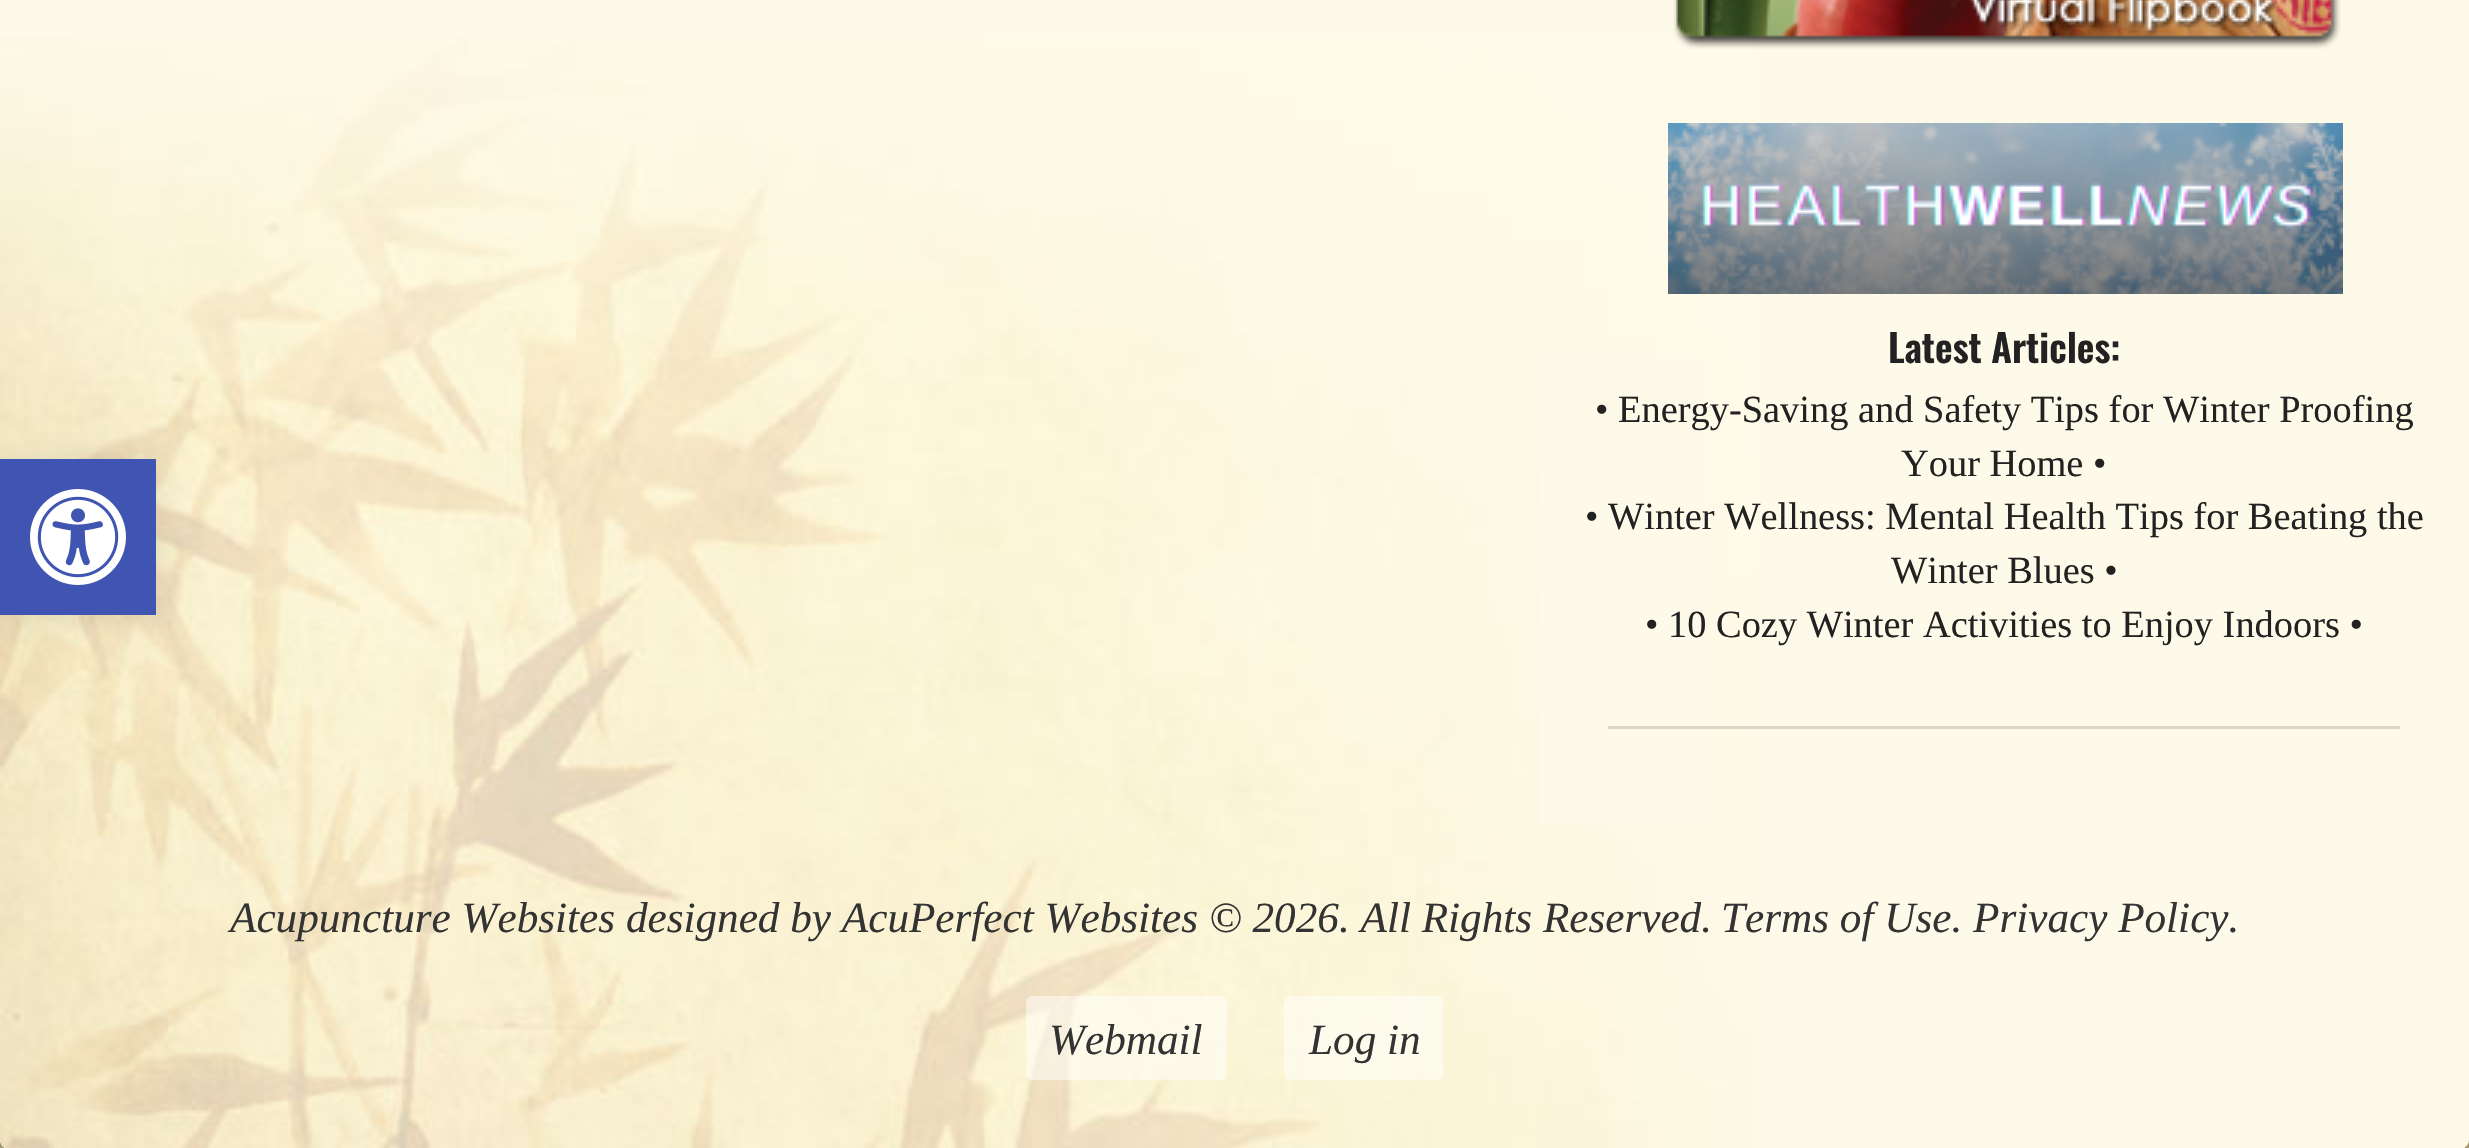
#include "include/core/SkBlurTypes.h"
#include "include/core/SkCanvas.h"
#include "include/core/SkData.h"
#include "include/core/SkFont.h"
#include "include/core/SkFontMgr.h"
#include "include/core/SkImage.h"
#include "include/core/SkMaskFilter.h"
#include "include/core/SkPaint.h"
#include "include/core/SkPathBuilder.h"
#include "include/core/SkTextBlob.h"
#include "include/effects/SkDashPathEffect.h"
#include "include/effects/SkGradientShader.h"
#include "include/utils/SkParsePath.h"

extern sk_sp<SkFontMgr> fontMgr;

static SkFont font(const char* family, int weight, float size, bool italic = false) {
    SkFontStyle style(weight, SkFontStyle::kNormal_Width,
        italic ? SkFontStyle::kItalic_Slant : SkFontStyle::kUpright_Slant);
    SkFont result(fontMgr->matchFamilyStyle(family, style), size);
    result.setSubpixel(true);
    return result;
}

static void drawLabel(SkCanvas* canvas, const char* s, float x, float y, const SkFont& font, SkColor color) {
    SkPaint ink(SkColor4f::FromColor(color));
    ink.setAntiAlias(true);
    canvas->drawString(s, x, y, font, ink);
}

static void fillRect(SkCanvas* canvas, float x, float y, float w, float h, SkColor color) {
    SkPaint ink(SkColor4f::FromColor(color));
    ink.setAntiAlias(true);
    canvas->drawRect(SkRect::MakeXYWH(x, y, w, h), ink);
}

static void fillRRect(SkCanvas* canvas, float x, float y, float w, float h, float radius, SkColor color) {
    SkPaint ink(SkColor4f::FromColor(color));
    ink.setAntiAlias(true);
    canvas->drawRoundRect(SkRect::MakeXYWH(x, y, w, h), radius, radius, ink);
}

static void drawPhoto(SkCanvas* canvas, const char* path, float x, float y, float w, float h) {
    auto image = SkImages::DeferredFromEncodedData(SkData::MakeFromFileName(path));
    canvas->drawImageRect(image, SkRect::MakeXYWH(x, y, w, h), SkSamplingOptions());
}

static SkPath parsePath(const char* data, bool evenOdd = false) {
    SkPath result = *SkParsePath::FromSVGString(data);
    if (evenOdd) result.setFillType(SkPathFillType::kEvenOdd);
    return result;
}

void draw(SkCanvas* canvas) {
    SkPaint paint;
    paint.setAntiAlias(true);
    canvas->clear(0xFFFFFFFF);
    drawPhoto(canvas, "assets/img1.png", 0, 1140, 2469, 8);
    paint.setColor(0xFF000000);
    paint.setMaskFilter(SkMaskFilter::MakeBlur(kNormal_SkBlurStyle, 12));
    canvas->drawRoundRect(SkRect::MakeXYWH(0, -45, 2469, 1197), 9, 9, paint);
    paint.setMaskFilter(nullptr);
    paint.setColor(0xFFFEFAE9);
    canvas->drawPath(parsePath("M0-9H2469V1140C2469 1145 2465 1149 2460 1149H9C4 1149 0 1145 0 1140Z"), paint);
    drawPhoto(canvas, "assets/img3.png", 0, 38, 1753, 1110);
    paint.setColor(0x1A000000);
    paint.setMaskFilter(SkMaskFilter::MakeBlur(kNormal_SkBlurStyle, 15));
    canvas->drawRect(SkRect::MakeXYWH(0, 459, 156, 156), paint);
    paint.setMaskFilter(nullptr);
    fillRect(canvas, 0, 459, 156, 156, 0xFF4054B2);
    drawPhoto(canvas, "assets/img2.png", 30, 489, 96, 96);
    fillRect(canvas, 1539, 356, 166, 469, 0xFFFEFAE9);
    drawPhoto(canvas, "assets/img4.png", 1673, 0, 668, 49);
    drawPhoto(canvas, "assets/img5.png", 1668, 123, 675, 171);
    SkFont font1 = font("Oswald", 600, 38.4f);
    drawLabel(canvas, "Latest Articles:", 1888, 363, font1, 0xFF222222);
    SkFont font2 = font("Liberation Serif", 400, 38.4f);
    drawLabel(canvas, "• Energy-Saving and Safety Tips for Winter Proofing", 1595, 422, font2, 0xFF222222);
    drawLabel(canvas, "Your Home •", 1901, 476, font2, 0xFF222222);
    drawLabel(canvas, "• Winter Wellness: Mental Health Tips for Beating the", 1585, 529, font2, 0xFF222222);
    drawLabel(canvas, "Winter Blues •", 1891, 583, font2, 0xFF222222);
    drawLabel(canvas, "• 10 Cozy Winter Activities to Enjoy Indoors •", 1645, 637, font2, 0xFF222222);
    fillRect(canvas, 1608, 726, 792, 3, 0xFFD8D5C6);
    SkFont font3 = font("Liberation Serif", 400, 43.2f, true);
    drawLabel(canvas, "Acupuncture Websites designed by AcuPerfect Websites © 2026. All Rights Reserved.", 230, 932, font3, 0xFF333333);
    drawLabel(canvas, "Terms of Use. Privacy Policy.", 1721, 932, font3, 0xFF333333);
    fillRRect(canvas, 1026, 996, 201, 84, 6, 0x80FFFFFF);
    drawLabel(canvas, "Webmail", 1049, 1054, font3, 0xFF333333);
    fillRRect(canvas, 1284, 996, 159, 84, 6, 0x80FFFFFF);
    drawLabel(canvas, "Log in", 1309, 1054, font3, 0xFF333333);
}
